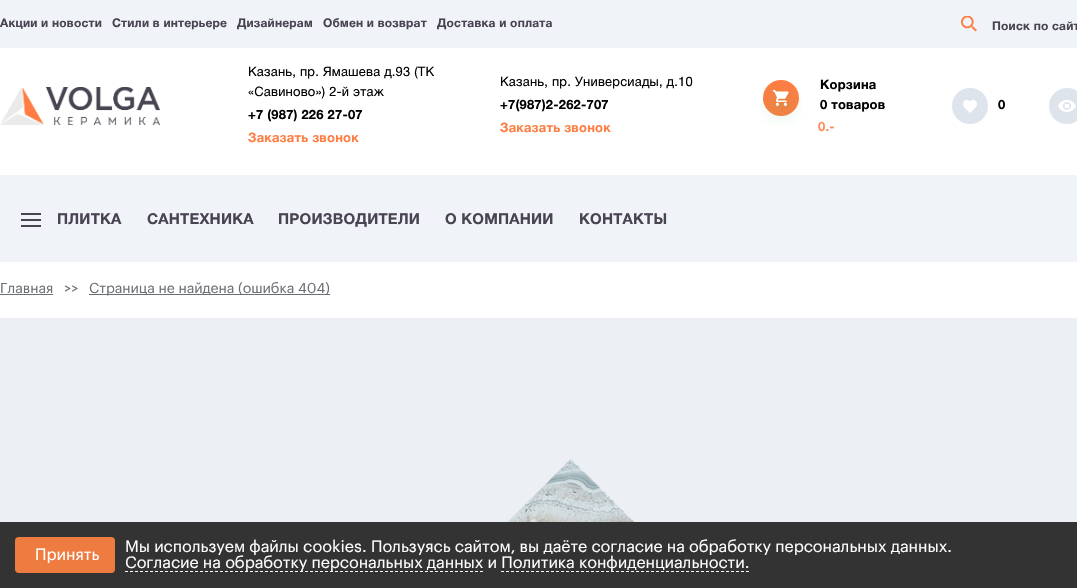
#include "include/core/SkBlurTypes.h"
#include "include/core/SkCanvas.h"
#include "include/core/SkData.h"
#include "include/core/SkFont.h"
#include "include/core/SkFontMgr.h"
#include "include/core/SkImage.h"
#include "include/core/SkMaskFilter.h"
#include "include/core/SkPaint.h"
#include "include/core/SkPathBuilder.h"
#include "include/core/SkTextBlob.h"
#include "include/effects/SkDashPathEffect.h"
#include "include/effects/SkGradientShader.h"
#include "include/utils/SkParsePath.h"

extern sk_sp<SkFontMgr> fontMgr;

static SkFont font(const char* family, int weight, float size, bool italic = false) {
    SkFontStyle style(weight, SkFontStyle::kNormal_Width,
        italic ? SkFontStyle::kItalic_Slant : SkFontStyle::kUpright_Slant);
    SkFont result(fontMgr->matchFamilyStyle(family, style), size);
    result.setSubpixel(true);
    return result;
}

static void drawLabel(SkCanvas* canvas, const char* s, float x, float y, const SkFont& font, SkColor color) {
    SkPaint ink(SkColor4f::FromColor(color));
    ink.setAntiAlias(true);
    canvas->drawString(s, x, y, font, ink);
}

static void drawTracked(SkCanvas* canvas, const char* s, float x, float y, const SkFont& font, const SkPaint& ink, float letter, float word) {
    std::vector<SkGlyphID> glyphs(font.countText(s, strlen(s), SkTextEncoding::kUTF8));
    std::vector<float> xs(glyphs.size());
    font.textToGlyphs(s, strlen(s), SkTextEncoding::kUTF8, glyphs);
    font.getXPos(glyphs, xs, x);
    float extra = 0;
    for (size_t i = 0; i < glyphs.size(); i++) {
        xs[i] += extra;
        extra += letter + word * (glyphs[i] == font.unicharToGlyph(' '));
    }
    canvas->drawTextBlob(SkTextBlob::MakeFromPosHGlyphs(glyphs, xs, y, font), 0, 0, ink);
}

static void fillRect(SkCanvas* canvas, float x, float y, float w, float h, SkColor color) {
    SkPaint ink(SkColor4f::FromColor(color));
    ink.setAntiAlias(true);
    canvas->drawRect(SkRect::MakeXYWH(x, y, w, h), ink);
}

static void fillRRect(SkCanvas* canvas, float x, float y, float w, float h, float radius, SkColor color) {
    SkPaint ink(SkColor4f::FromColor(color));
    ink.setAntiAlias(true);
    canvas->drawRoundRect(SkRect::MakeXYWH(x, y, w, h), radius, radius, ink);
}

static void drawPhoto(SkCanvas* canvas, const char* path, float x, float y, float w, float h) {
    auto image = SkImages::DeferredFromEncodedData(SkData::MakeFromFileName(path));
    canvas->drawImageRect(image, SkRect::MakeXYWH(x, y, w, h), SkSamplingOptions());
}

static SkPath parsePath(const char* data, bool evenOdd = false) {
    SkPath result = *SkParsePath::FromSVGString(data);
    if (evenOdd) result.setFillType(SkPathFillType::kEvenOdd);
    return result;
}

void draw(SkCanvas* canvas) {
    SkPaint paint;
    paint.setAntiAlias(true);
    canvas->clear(0xFFF0F4F9);
    SkFont font1 = font("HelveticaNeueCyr", 700, 12);
    paint.setColor(0xFF494451);
    drawTracked(canvas, "Акции и новости", 0, 27, font1, paint, 0.2f, 0);
    drawTracked(canvas, "Стили в интерьере", 112, 27, font1, paint, 0.2f, 0);
    drawTracked(canvas, "Дизайнерам", 237, 27, font1, paint, 0.2f, 0);
    drawTracked(canvas, "Обмен и возврат", 323, 27, font1, paint, 0.2f, 0);
    drawTracked(canvas, "Доставка и оплата", 437, 27, font1, paint, 0.2f, 0);
    drawPhoto(canvas, "assets/img1.png", 961, 16, 16, 16);
    drawTracked(canvas, "Поиск по сайт", 992, 30, font1, paint, 0.2f, 0);
    fillRect(canvas, 0, 48, 1077, 127, 0xFFFFFFFF);
    drawPhoto(canvas, "assets/img2.png", 0, 87, 160, 38);
    SkFont font2 = font("HelveticaNeueCyr", 400, 13);
    paint.setColor(0xFF000000);
    drawTracked(canvas, "Казань, пр. Ямашева д.93 (ТК", 248, 76, font2, paint, 0.2f, 0);
    drawTracked(canvas, "«Савиново») 2-й этаж", 248, 96, font2, paint, 0.2f, 0);
    SkFont font3 = font("HelveticaNeueCyr", 700, 13);
    drawTracked(canvas, "+7 (987) 226 27-07", 248, 119, font3, paint, 0.2f, 0);
    paint.setColor(0xFFFE7E43);
    drawTracked(canvas, "Заказать звонок", 248, 142, font3, paint, 0.2f, 0);
    paint.setColor(0xFF000000);
    drawTracked(canvas, "Казань, пр. Универсиады, д.10", 500, 86, font2, paint, 0.2f, 0);
    drawTracked(canvas, "+7(987)2-262-707", 500, 109, font3, paint, 0.2f, 0);
    paint.setColor(0xFFFE7E43);
    drawTracked(canvas, "Заказать звонок", 500, 132, font3, paint, 0.2f, 0);
    drawPhoto(canvas, "assets/img3.png", 761, 80, 40, 45);
    paint.setColor(0xFF000000);
    drawTracked(canvas, "Корзина", 820, 89, font3, paint, 0.2f, 0);
    drawTracked(canvas, "0 товаров", 820, 109, font3, paint, 0.2f, 0);
    paint.setColor(0xFFFF8E5D);
    drawTracked(canvas, "0.-", 818, 131, font3, paint, 0.2f, 0);
    paint.setColor(0xFFDDE4EC);
    canvas->drawCircle(970, 106, 18, paint);
    drawPhoto(canvas, "assets/img4.png", 963, 100, 14, 13);
    paint.setColor(0xFF000000);
    drawTracked(canvas, "0", 998, 109, font3, paint, 0.2f, 0);
    paint.setColor(0xFFDDE4EC);
    canvas->drawCircle(1067, 106, 18, paint);
    drawPhoto(canvas, "assets/img5.png", 1058, 100, 18, 12);
    fillRect(canvas, 21, 213, 20, 2, 0xFF494451);
    fillRect(canvas, 21, 219, 20, 2, 0xFF494451);
    fillRect(canvas, 21, 225, 20, 2, 0xFF494451);
    SkFont font4 = font("HelveticaNeueCyr", 700, 15);
    paint.setColor(0xFF494451);
    drawTracked(canvas, "ПЛИТКА", 57, 224, font4, paint, 0.2f, 0);
    drawTracked(canvas, "САНТЕХНИКА", 147, 224, font4, paint, 0.2f, 0);
    drawTracked(canvas, "ПРОИЗВОДИТЕЛИ", 278, 224, font4, paint, 0.2f, 0);
    drawTracked(canvas, "О КОМПАНИИ", 445, 224, font4, paint, 0.2f, 0);
    drawTracked(canvas, "КОНТАКТЫ", 579, 224, font4, paint, 0.2f, 0);
    fillRect(canvas, 0, 262, 1077, 56, 0xFFFFFFFF);
    SkFont font5 = font("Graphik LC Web", 400, 14);
    drawLabel(canvas, "Главная", 0, 293, font5, 0xFF6A6F76);
    fillRect(canvas, 0, 294, 53, 1, 0xFF6A6F76);
    drawLabel(canvas, ">>", 64, 293, font5, 0xFF6A6F76);
    fillRect(canvas, 89, 294, 241, 1, 0xFF6A6F76);
    drawLabel(canvas, "Страница не найдена (ошибка 404)", 89, 293, font5, 0xFF6A6F76);
    fillRect(canvas, 0, 318, 1077, 204, 0xFFECEFF3);
    drawPhoto(canvas, "assets/img6.png", 507, 459, 128, 63);
    fillRect(canvas, 0, 522, 1077, 66, 0xFF333333);
    fillRRect(canvas, 15, 537, 100, 36, 4, 0xFFEE7C40);
    SkFont font6 = font("Graphik LC Web", 400, 16);
    drawLabel(canvas, "Принять", 35, 560, font6, 0xFFFFFFFF);
    drawLabel(canvas, "Мы используем файлы cookies. Пользуясь сайтом, вы даёте согласие на обработку персональных данных.", 125, 552, font6, 0xFFFFFFFF);
    paint.setStroke(true);
    paint.setStrokeWidth(1);
    paint.setColor(0xFFFFFFFF);
    paint.setPathEffect(SkDashPathEffect::Make({{3, 2}}, 0));
    canvas->drawPath(parsePath("M125 571.5H483"), paint);
    paint.setPathEffect(nullptr);
    drawLabel(canvas, "Согласие на обработку персональных данных и Политика конфиденциальности.", 125, 568, font6, 0xFFFFFFFF);
    paint.setPathEffect(SkDashPathEffect::Make({{3, 2}}, 0));
    canvas->drawPath(parsePath("M501 571.5H749"), paint);
    paint.setPathEffect(nullptr);
}
